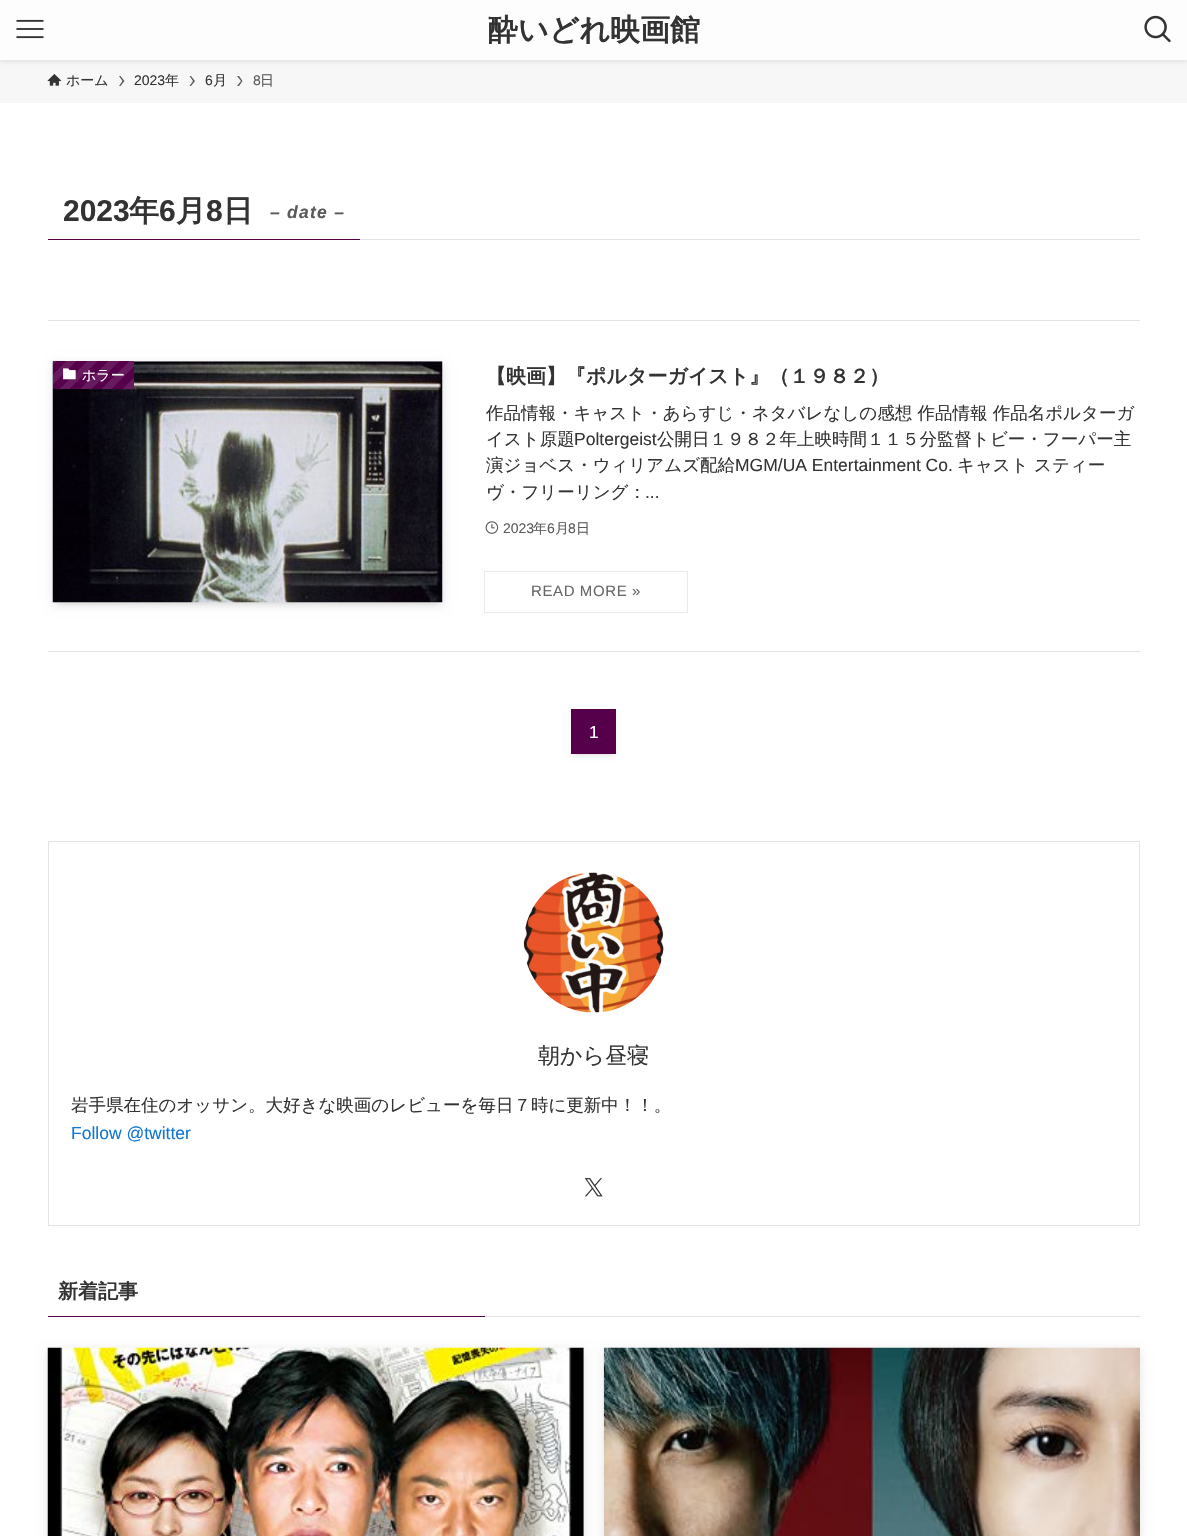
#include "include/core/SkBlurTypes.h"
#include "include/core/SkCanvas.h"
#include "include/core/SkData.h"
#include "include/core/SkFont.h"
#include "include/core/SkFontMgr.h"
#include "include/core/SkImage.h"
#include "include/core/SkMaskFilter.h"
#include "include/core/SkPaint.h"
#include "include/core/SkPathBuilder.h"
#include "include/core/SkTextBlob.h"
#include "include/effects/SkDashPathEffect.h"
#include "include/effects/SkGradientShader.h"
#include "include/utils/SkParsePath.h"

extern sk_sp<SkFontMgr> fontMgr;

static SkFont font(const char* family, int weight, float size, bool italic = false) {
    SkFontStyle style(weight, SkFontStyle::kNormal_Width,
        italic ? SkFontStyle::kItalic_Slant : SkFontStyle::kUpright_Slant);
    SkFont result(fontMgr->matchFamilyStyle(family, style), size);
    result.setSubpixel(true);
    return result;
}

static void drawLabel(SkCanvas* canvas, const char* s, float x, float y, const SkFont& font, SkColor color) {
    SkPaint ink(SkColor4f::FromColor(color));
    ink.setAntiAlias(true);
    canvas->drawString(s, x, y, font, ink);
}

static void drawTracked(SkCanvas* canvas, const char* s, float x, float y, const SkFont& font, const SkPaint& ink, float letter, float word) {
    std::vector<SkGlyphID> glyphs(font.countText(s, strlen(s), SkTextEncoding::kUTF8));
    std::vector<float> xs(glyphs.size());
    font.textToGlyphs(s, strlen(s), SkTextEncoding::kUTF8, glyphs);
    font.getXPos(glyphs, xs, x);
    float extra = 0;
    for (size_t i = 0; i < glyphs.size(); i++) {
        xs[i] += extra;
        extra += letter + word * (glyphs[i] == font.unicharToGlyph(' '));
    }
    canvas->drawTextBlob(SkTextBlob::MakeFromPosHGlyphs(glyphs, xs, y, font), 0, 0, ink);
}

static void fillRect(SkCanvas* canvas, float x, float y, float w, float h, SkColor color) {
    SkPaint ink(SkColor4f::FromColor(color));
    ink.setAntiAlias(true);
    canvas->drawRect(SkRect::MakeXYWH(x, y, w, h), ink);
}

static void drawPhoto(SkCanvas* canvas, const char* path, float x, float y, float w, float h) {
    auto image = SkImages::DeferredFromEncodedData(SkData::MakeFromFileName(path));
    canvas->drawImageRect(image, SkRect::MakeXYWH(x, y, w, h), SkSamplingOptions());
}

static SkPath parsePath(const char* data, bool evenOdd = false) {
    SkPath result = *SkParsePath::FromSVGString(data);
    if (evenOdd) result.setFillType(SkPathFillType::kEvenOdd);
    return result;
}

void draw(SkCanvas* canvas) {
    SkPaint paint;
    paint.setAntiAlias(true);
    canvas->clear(0xFFFFFFFF);
    fillRect(canvas, 0, 60, 1187, 43, 0xFFF7F7F7);
    paint.setColor(0x1F000000);
    paint.setMaskFilter(SkMaskFilter::MakeBlur(kNormal_SkBlurStyle, 2.5f));
    canvas->drawRect(SkRect::MakeXYWH(0, 1, 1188, 60), paint);
    paint.setMaskFilter(nullptr);
    fillRect(canvas, 0, 0, 1187, 60, 0xFFFDFDFD);
    drawPhoto(canvas, "assets/img1.png", 16, 19, 28, 20);
    SkFont font1 = font("WenQuanYi Zen Hei", 700, 30);
    drawLabel(canvas, "酔いどれ映画館", 488, 40, font1, 0xFF333333);
    drawPhoto(canvas, "assets/img2.png", 1144, 15, 27, 28);
    drawPhoto(canvas, "assets/img3.png", 47, 74, 15, 12);
    SkFont font2 = font("WenQuanYi Zen Hei", 500, 14);
    drawLabel(canvas, "ホーム", 66, 85, font2, 0xFF333333);
    paint.setColor(0xFF5A5A5A);
    canvas->drawPath(parsePath("M120.5 76H119L122.5 81L119 86H120.5L124.5 81Z"), paint);
    SkFont font3 = font("Liberation Sans", 400, 14);
    drawLabel(canvas, "2023", 134, 85, font3, 0xFF333333);
    drawLabel(canvas, "年", 165, 85, font2, 0xFF333333);
    canvas->drawPath(parsePath("M191 76H189.5L193 81L189.5 86H191L195 81Z"), paint);
    drawLabel(canvas, "6", 205, 85, font3, 0xFF333333);
    drawLabel(canvas, "月", 213, 85, font2, 0xFF333333);
    canvas->drawPath(parsePath("M239 76H237L241 81L237 86H239L242.5 81Z"), paint);
    drawLabel(canvas, "8", 253, 85, font3, 0xFF5A5A5A);
    drawLabel(canvas, "日", 260, 85, font2, 0xFF5A5A5A);
    fillRect(canvas, 360, 239, 780, 1, 0xFFE3E3E3);
    fillRect(canvas, 48, 239, 312, 1, 0xFF56004C);
    SkFont font4 = font("Liberation Sans", 700, 30);
    drawLabel(canvas, "2023", 63, 221, font4, 0xFF333333);
    drawLabel(canvas, "年", 129, 221, font1, 0xFF333333);
    drawLabel(canvas, "6", 159, 221, font4, 0xFF333333);
    drawLabel(canvas, "月", 176, 221, font1, 0xFF333333);
    drawLabel(canvas, "8", 206, 221, font4, 0xFF333333);
    drawLabel(canvas, "日", 223, 221, font1, 0xFF333333);
    SkFont font5 = font("Liberation Sans", 700, 17.5f, true);
    drawTracked(canvas, "– date –", 270, 218, font5, paint, 1.25f, 0);
    fillRect(canvas, 48, 320, 1092, 1, 0xFFE3E3E3);
    fillRect(canvas, 48, 651, 1092, 1, 0xFFE3E3E3);
    paint.setColor(0x1A000000);
    paint.setMaskFilter(SkMaskFilter::MakeBlur(kNormal_SkBlurStyle, 2.5f));
    canvas->drawRect(SkRect::MakeXYWH(58, 371, 380, 232), paint);
    paint.setMaskFilter(nullptr);
    paint.setMaskFilter(SkMaskFilter::MakeBlur(kNormal_SkBlurStyle, 5));
    canvas->drawRect(SkRect::MakeXYWH(53, 364, 390, 241), paint);
    paint.setMaskFilter(nullptr);
    drawPhoto(canvas, "assets/img4.png", 52, 361, 391, 242);
    {
        const SkColor colors[] = {0xFF671A5E, 0xFF671A5E, 0xFF56004C, 0xFF56004C, 0xFF671A5E, 0xFF671A5E, 0xFF56004C, 0xFF56004C, 0xFF671A5E, 0xFF671A5E, 0xFF56004C, 0xFF56004C, 0xFF671A5E, 0xFF671A5E, 0xFF56004C, 0xFF56004C, 0xFF671A5E, 0xFF671A5E, 0xFF56004C, 0xFF56004C, 0xFF671A5E, 0xFF671A5E, 0xFF56004C, 0xFF56004C};
        const float stops[] = {0, 0.08f, 0.08f, 0.17f, 0.17f, 0.25f, 0.25f, 0.33f, 0.33f, 0.42f, 0.42f, 0.5f, 0.5f, 0.58f, 0.58f, 0.67f, 0.67f, 0.75f, 0.75f, 0.83f, 0.83f, 0.92f, 0.92f, 1};
        const SkPoint ends[] = {{120, 402}, {57, 339}};
        paint.setShader(SkGradientShader::MakeLinear(ends, colors, stops, 24, SkTileMode::kClamp));
        paint.setAlpha(255);
    }
    canvas->drawRect(SkRect::MakeXYWH(53, 361, 81, 28), paint);
    drawPhoto(canvas, "assets/img5.png", 63, 368, 13, 12);
    drawLabel(canvas, "ホラー", 82, 380, font2, 0xFFFFFFFF);
    SkFont font6 = font("WenQuanYi Zen Hei", 700, 20);
    drawLabel(canvas, "【映画】『ポルターガイスト』（１９８２）", 486, 383, font6, 0xFF333333);
    SkFont font7 = font("WenQuanYi Zen Hei", 500, 17.5f);
    drawLabel(canvas, "作品情報・キャスト・あらすじ・ネタバレなしの感想 作品情報 作品名ポルターガ", 486, 419, font7, 0xFF333333);
    drawLabel(canvas, "イスト原題", 486, 445, font7, 0xFF333333);
    SkFont font8 = font("Liberation Sans", 400, 17.5f);
    drawLabel(canvas, "Poltergeist", 574, 445, font8, 0xFF333333);
    drawLabel(canvas, "公開日１９８２年上映時間１１５分監督トビー・フーパー主", 657, 445, font7, 0xFF333333);
    drawLabel(canvas, "演ジョベス・ウィリアムズ配給", 486, 471, font7, 0xFF333333);
    drawLabel(canvas, "MGM/UA Entertainment Co.", 735, 471, font8, 0xFF333333);
    drawLabel(canvas, "キャスト", 957, 471, font7, 0xFF333333);
    drawLabel(canvas, "スティー", 1034, 471, font7, 0xFF333333);
    drawLabel(canvas, "ヴ・フリーリング：", 486, 498, font7, 0xFF333333);
    drawLabel(canvas, "...", 645, 498, font8, 0xFF333333);
    drawPhoto(canvas, "assets/img6.png", 485, 521, 14, 13);
    drawLabel(canvas, "2023", 503, 533, font3, 0xFF5A5A5A);
    drawLabel(canvas, "年", 533, 533, font2, 0xFF5A5A5A);
    drawLabel(canvas, "6", 547, 533, font3, 0xFF5A5A5A);
    drawLabel(canvas, "月", 555, 533, font2, 0xFF5A5A5A);
    drawLabel(canvas, "8", 568, 533, font3, 0xFF5A5A5A);
    drawLabel(canvas, "日", 576, 533, font2, 0xFF5A5A5A);
    paint.setStroke(true);
    paint.setStrokeWidth(1);
    paint.setShader(nullptr);
    paint.setColor(0xFFEAEAEA);
    canvas->drawRect(SkRect::MakeXYWH(484.5f, 571.5f, 203, 41), paint);
    SkFont font9 = font("Liberation Sans", 400, 15);
    paint.setStroke(false);
    paint.setColor(0xFF666666);
    drawTracked(canvas, "READ MORE »", 531, 596, font9, paint, 0.6f, 0);
    paint.setColor(0x1A000000);
    paint.setMaskFilter(SkMaskFilter::MakeBlur(kNormal_SkBlurStyle, 2.5f));
    canvas->drawRect(SkRect::MakeXYWH(576, 719, 35, 35), paint);
    paint.setMaskFilter(nullptr);
    paint.setColor(0x0D000000);
    paint.setMaskFilter(SkMaskFilter::MakeBlur(kNormal_SkBlurStyle, 2.5f));
    canvas->drawRect(SkRect::MakeXYWH(571, 711, 45, 45), paint);
    paint.setMaskFilter(nullptr);
    fillRect(canvas, 571, 709, 45, 45, 0xFF56004C);
    drawLabel(canvas, "1", 589, 738, font8, 0xFFFFFFFF);
    paint.setStroke(true);
    paint.setColor(0xFFE3E3E3);
    canvas->drawRect(SkRect::MakeXYWH(48.5f, 841.5f, 1091, 384), paint);
    drawPhoto(canvas, "assets/img7.png", 523, 872, 141, 141);
    SkFont font10 = font("WenQuanYi Zen Hei", 500, 22);
    drawLabel(canvas, "朝から昼寝", 538, 1063, font10, 0xFF333333);
    drawLabel(canvas, "岩手県在住のオッサン。大好きな映画のレビューを毎日７時に更新中！！。", 71, 1111, font7, 0xFF333333);
    drawLabel(canvas, "Follow @twitter", 71, 1139, font8, 0xFF1176D4);
    drawPhoto(canvas, "assets/img8.png", 584, 1178, 19, 19);
    drawLabel(canvas, "新着記事", 58, 1298, font6, 0xFF333333);
    fillRect(canvas, 48, 1316, 437, 1, 0xFF56004C);
    fillRect(canvas, 485, 1316, 655, 1, 0xFFE3E3E3);
    paint.setStroke(false);
    paint.setColor(0x1A000000);
    paint.setMaskFilter(SkMaskFilter::MakeBlur(kNormal_SkBlurStyle, 5));
    canvas->drawRect(SkRect::MakeXYWH(48, 1350, 536, 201), paint);
    paint.setMaskFilter(nullptr);
    drawPhoto(canvas, "assets/img9.png", 47, 1347, 537, 189);
    paint.setMaskFilter(SkMaskFilter::MakeBlur(kNormal_SkBlurStyle, 5));
    canvas->drawRect(SkRect::MakeXYWH(604, 1350, 536, 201), paint);
    paint.setMaskFilter(nullptr);
    drawPhoto(canvas, "assets/img10.png", 603, 1347, 537, 189);
}
